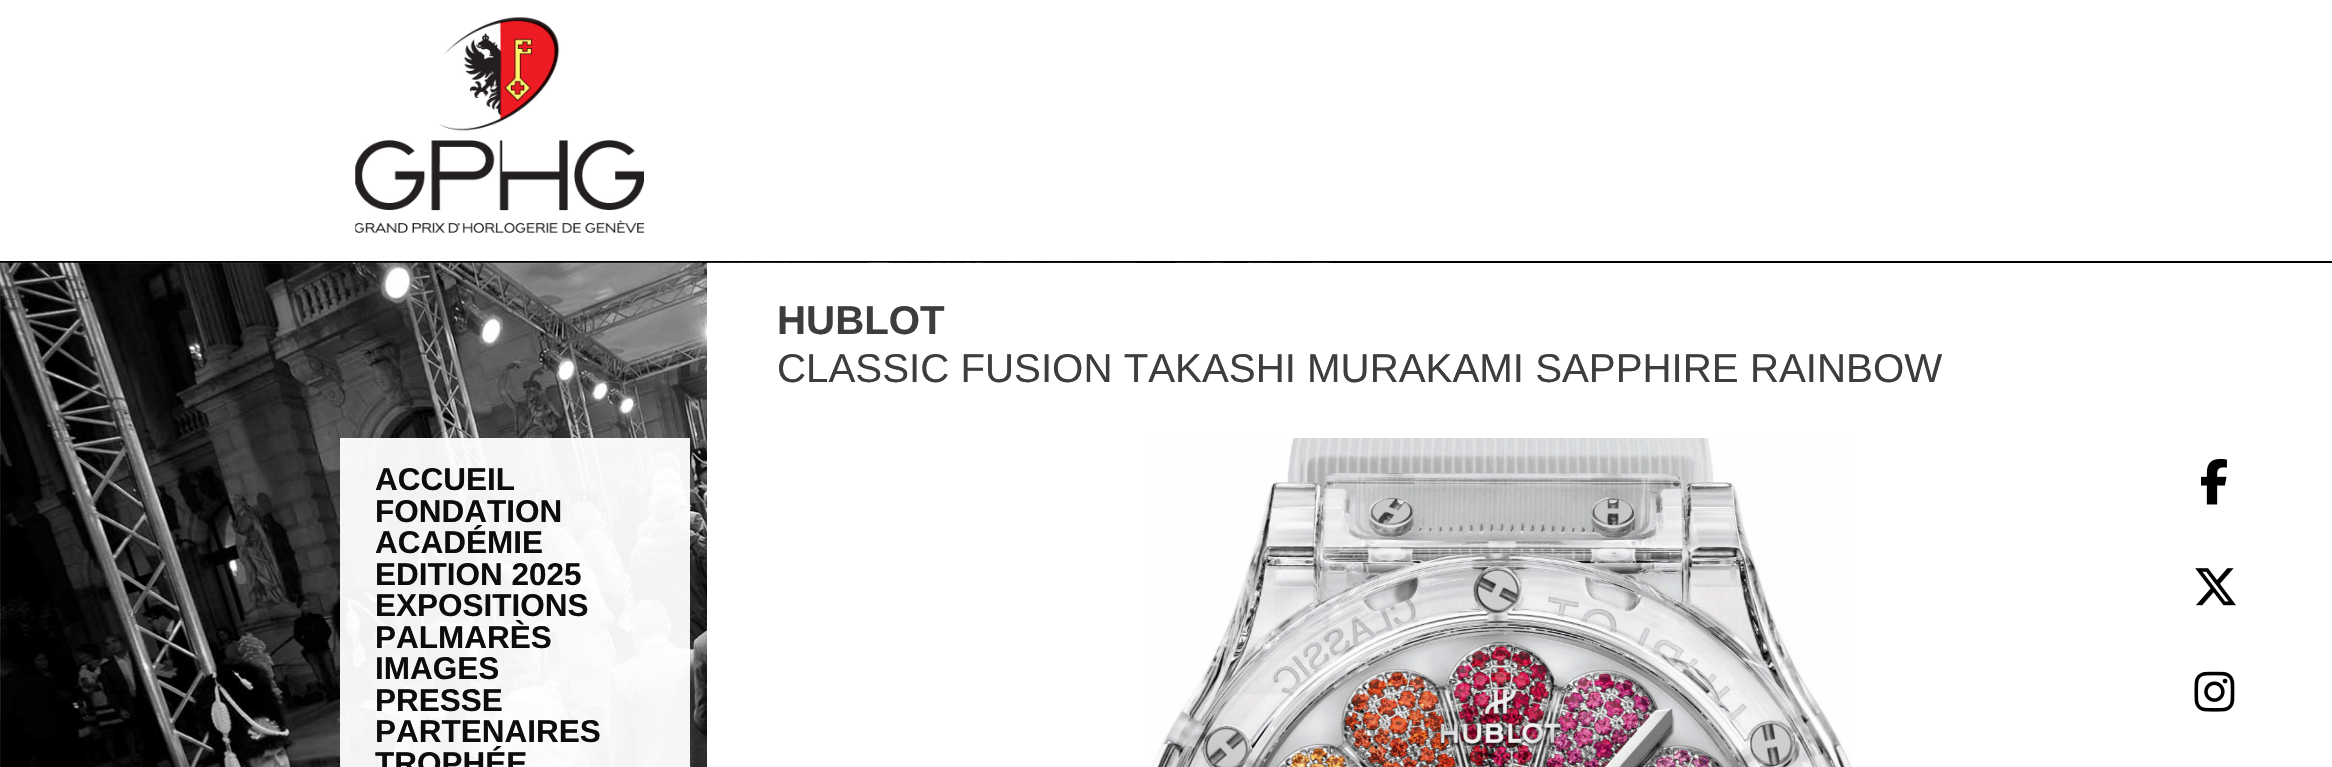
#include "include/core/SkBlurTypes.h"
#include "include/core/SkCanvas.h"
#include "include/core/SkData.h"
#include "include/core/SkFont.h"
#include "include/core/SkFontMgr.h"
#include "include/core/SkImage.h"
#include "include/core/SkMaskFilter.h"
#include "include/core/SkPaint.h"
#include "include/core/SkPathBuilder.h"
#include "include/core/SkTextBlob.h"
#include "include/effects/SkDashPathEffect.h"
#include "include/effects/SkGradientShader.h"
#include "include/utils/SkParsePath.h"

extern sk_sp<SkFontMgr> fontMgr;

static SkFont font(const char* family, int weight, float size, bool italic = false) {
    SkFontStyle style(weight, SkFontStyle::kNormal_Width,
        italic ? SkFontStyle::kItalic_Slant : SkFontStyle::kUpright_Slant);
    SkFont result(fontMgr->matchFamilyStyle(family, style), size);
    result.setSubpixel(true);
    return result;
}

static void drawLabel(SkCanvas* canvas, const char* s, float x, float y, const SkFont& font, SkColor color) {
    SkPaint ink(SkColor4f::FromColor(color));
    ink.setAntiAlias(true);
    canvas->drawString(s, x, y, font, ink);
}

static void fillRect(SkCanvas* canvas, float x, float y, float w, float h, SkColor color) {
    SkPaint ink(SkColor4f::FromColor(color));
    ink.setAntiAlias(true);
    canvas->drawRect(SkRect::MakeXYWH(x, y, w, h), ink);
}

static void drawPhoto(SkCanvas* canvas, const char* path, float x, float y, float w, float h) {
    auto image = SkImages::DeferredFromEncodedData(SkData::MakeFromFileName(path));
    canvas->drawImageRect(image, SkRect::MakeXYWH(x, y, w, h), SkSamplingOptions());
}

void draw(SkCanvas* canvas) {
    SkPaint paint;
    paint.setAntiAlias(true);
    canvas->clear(0xFFFFFFFF);
    fillRect(canvas, 0, 261, 2332, 2, 0xFF000000);
    drawPhoto(canvas, "assets/img1.png", 355, 17, 289, 216);
    drawPhoto(canvas, "assets/img2.png", 0, 262, 1332, 505);
    fillRect(canvas, 707, 263, 625, 504, 0xFFFFFFFF);
    SkFont font1 = font("Liberation Sans", 700, 40.25f);
    drawLabel(canvas, "HUBLOT", 777, 334, font1, 0xFF3D3D3C);
    SkFont font2 = font("Liberation Sans", 400, 40.25f);
    drawLabel(canvas, "CLASSIC FUSION TAKASHI MURAKAMI SAPPHIRE RAINBOW", 777, 382, font2, 0xFF3D3D3C);
    drawPhoto(canvas, "assets/img3.png", 1151, 438, 702, 329);
    drawPhoto(canvas, "assets/img4.png", 2201, 458, 26, 47);
    drawPhoto(canvas, "assets/img5.png", 2195, 568, 41, 38);
    drawPhoto(canvas, "assets/img6.png", 2194, 671, 41, 41);
    fillRect(canvas, 340, 438, 350, 329, 0xF2FFFFFF);
    SkFont font3 = font("Liberation Sans", 700, 31.5f);
    drawLabel(canvas, "ACCUEIL", 375, 490, font3, 0xFF0C0C0C);
    drawLabel(canvas, "FONDATION", 375, 522, font3, 0xFF0C0C0C);
    drawLabel(canvas, "ACADÉMIE", 375, 553, font3, 0xFF0C0C0C);
    drawLabel(canvas, "EDITION 2025", 375, 585, font3, 0xFF0C0C0C);
    drawLabel(canvas, "EXPOSITIONS", 375, 616, font3, 0xFF0C0C0C);
    drawLabel(canvas, "PALMARÈS", 375, 648, font3, 0xFF0C0C0C);
    drawLabel(canvas, "IMAGES", 375, 679, font3, 0xFF0C0C0C);
    drawLabel(canvas, "PRESSE", 375, 711, font3, 0xFF0C0C0C);
    drawLabel(canvas, "PARTENAIRES", 375, 742, font3, 0xFF0C0C0C);
    drawLabel(canvas, "TROPHÉE", 375, 774, font3, 0xFF0C0C0C);
}
